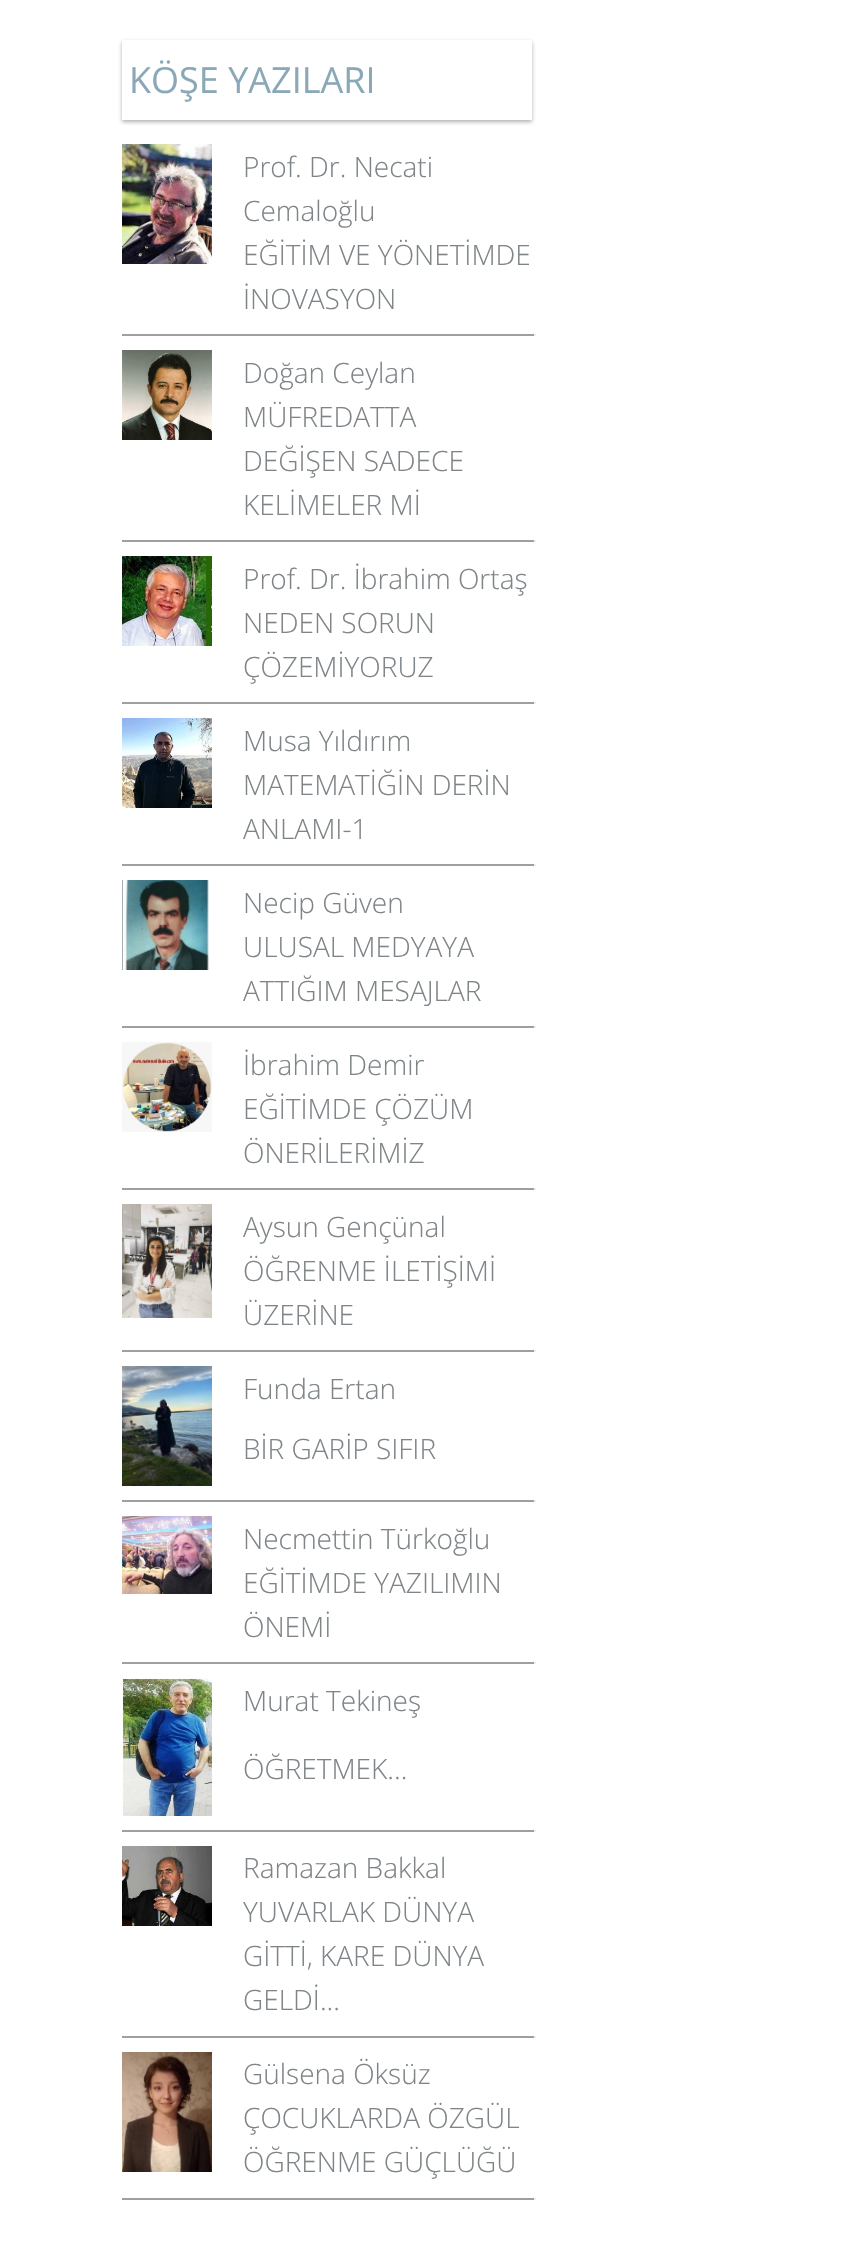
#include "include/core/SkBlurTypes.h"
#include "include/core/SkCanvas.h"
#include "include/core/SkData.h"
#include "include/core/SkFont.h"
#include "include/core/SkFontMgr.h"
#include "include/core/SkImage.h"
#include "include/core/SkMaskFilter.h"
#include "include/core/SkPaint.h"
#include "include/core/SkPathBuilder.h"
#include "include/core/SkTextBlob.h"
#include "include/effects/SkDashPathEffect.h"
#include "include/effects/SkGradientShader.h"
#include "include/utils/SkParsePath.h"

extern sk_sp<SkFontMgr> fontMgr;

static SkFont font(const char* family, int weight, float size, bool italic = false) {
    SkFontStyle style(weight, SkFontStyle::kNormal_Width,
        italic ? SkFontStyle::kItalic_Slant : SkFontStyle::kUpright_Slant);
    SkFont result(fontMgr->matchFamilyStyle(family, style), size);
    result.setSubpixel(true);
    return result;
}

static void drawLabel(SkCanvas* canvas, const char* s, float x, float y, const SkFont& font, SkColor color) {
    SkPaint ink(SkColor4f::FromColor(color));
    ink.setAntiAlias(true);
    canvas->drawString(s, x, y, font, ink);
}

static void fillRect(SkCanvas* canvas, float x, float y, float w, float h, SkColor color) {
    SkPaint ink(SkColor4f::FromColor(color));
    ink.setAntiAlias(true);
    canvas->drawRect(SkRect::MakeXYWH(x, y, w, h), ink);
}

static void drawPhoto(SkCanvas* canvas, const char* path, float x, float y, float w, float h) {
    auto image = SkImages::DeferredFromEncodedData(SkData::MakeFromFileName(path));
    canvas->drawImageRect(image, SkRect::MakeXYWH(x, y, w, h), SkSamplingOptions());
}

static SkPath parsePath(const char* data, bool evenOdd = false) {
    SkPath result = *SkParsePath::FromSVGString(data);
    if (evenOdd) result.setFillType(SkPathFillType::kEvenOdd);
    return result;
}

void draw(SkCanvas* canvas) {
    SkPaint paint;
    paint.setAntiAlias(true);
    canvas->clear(0xFFFFFFFF);
    canvas->save();
    canvas->clipPath(parsePath("M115 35H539V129H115ZM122 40H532V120H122Z", true), true);
    paint.setColor(0x80646464);
    paint.setMaskFilter(SkMaskFilter::MakeBlur(kNormal_SkBlurStyle, 2));
    canvas->drawRect(SkRect::MakeXYWH(122, 42, 410, 80), paint);
    paint.setMaskFilter(nullptr);
    canvas->restore();
    SkFont font1 = font("Open Sans", 400, 36);
    drawLabel(canvas, "KÖŞE YAZILARI", 129, 93, font1, 0xFF8BA8B9);
    drawPhoto(canvas, "assets/img1.png", 122, 144, 90, 120);
    SkFont font2 = font("Open Sans", 300, 28);
    drawLabel(canvas, "Prof. Dr. Necati", 243, 177, font2, 0xFF7E8487);
    drawLabel(canvas, "Cemaloğlu", 243, 221, font2, 0xFF7E8487);
    drawLabel(canvas, "EĞİTİM VE YÖNETİMDE", 243, 265, font2, 0xFF7E8487);
    drawLabel(canvas, "İNOVASYON", 243, 309, font2, 0xFF7E8487);
    fillRect(canvas, 122, 334, 414, 2, 0xFF9F9F9F);
    fillRect(canvas, 534, 334, 2, 2, 0xFFEEEEEE);
    drawPhoto(canvas, "assets/img2.png", 122, 350, 90, 90);
    drawLabel(canvas, "Doğan Ceylan", 243, 383, font2, 0xFF7E8487);
    drawLabel(canvas, "MÜFREDATTA", 243, 427, font2, 0xFF7E8487);
    drawLabel(canvas, "DEĞİŞEN SADECE", 243, 471, font2, 0xFF7E8487);
    drawLabel(canvas, "KELİMELER Mİ", 243, 515, font2, 0xFF7E8487);
    fillRect(canvas, 122, 540, 414, 2, 0xFF9F9F9F);
    fillRect(canvas, 534, 540, 2, 2, 0xFFEEEEEE);
    drawPhoto(canvas, "assets/img3.png", 122, 556, 90, 90);
    drawLabel(canvas, "Prof. Dr. İbrahim Ortaş", 243, 589, font2, 0xFF7E8487);
    drawLabel(canvas, "NEDEN SORUN", 243, 633, font2, 0xFF7E8487);
    drawLabel(canvas, "ÇÖZEMİYORUZ", 243, 677, font2, 0xFF7E8487);
    fillRect(canvas, 122, 702, 414, 2, 0xFF9F9F9F);
    fillRect(canvas, 534, 702, 2, 2, 0xFFEEEEEE);
    drawPhoto(canvas, "assets/img4.png", 122, 718, 90, 90);
    drawLabel(canvas, "Musa Yıldırım", 243, 751, font2, 0xFF7E8487);
    drawLabel(canvas, "MATEMATİĞİN DERİN", 243, 795, font2, 0xFF7E8487);
    drawLabel(canvas, "ANLAMI-1", 243, 839, font2, 0xFF7E8487);
    fillRect(canvas, 122, 864, 414, 2, 0xFF9F9F9F);
    fillRect(canvas, 534, 864, 2, 2, 0xFFEEEEEE);
    drawPhoto(canvas, "assets/img5.png", 122, 880, 87, 90);
    drawLabel(canvas, "Necip Güven", 243, 913, font2, 0xFF7E8487);
    drawLabel(canvas, "ULUSAL MEDYAYA", 243, 957, font2, 0xFF7E8487);
    drawLabel(canvas, "ATTIĞIM MESAJLAR", 243, 1001, font2, 0xFF7E8487);
    fillRect(canvas, 122, 1026, 414, 2, 0xFF9F9F9F);
    fillRect(canvas, 534, 1026, 2, 2, 0xFFEEEEEE);
    drawPhoto(canvas, "assets/img6.png", 122, 1042, 90, 90);
    drawLabel(canvas, "İbrahim Demir", 243, 1075, font2, 0xFF7E8487);
    drawLabel(canvas, "EĞİTİMDE ÇÖZÜM", 243, 1119, font2, 0xFF7E8487);
    drawLabel(canvas, "ÖNERİLERİMİZ", 243, 1163, font2, 0xFF7E8487);
    fillRect(canvas, 122, 1188, 414, 2, 0xFF9F9F9F);
    fillRect(canvas, 534, 1188, 2, 2, 0xFFEEEEEE);
    drawPhoto(canvas, "assets/img7.png", 122, 1204, 90, 114);
    drawLabel(canvas, "Aysun Gençünal", 243, 1237, font2, 0xFF7E8487);
    drawLabel(canvas, "ÖĞRENME İLETİŞİMİ", 243, 1281, font2, 0xFF7E8487);
    drawLabel(canvas, "ÜZERİNE", 243, 1325, font2, 0xFF7E8487);
    fillRect(canvas, 122, 1350, 414, 2, 0xFF9F9F9F);
    fillRect(canvas, 534, 1350, 2, 2, 0xFFEEEEEE);
    drawPhoto(canvas, "assets/img8.png", 122, 1366, 90, 120);
    drawLabel(canvas, "Funda Ertan", 243, 1399, font2, 0xFF7E8487);
    drawLabel(canvas, "BİR GARİP SIFIR", 243, 1459, font2, 0xFF7E8487);
    fillRect(canvas, 122, 1500, 414, 2, 0xFF9F9F9F);
    fillRect(canvas, 534, 1500, 2, 2, 0xFFEEEEEE);
    drawPhoto(canvas, "assets/img9.png", 122, 1516, 90, 78);
    drawLabel(canvas, "Necmettin Türkoğlu", 243, 1549, font2, 0xFF7E8487);
    drawLabel(canvas, "EĞİTİMDE YAZILIMIN", 243, 1593, font2, 0xFF7E8487);
    drawLabel(canvas, "ÖNEMİ", 243, 1637, font2, 0xFF7E8487);
    fillRect(canvas, 122, 1662, 414, 2, 0xFF9F9F9F);
    fillRect(canvas, 534, 1662, 2, 2, 0xFFEEEEEE);
    drawPhoto(canvas, "assets/img10.png", 122, 1678, 90, 138);
    drawLabel(canvas, "Murat Tekineş", 243, 1711, font2, 0xFF7E8487);
    drawLabel(canvas, "ÖĞRETMEK...", 243, 1779, font2, 0xFF7E8487);
    fillRect(canvas, 122, 1830, 414, 2, 0xFF9F9F9F);
    fillRect(canvas, 534, 1830, 2, 2, 0xFFEEEEEE);
    drawPhoto(canvas, "assets/img11.png", 122, 1846, 90, 80);
    drawLabel(canvas, "Ramazan Bakkal", 243, 1878, font2, 0xFF7E8487);
    drawLabel(canvas, "YUVARLAK DÜNYA", 243, 1922, font2, 0xFF7E8487);
    drawLabel(canvas, "GİTTİ, KARE DÜNYA", 243, 1966, font2, 0xFF7E8487);
    drawLabel(canvas, "GELDİ...", 243, 2010, font2, 0xFF7E8487);
    fillRect(canvas, 122, 2036, 414, 2, 0xFF9F9F9F);
    fillRect(canvas, 534, 2036, 2, 2, 0xFFEEEEEE);
    drawPhoto(canvas, "assets/img12.png", 122, 2052, 90, 120);
    drawLabel(canvas, "Gülsena Öksüz", 243, 2084, font2, 0xFF7E8487);
    drawLabel(canvas, "ÇOCUKLARDA ÖZGÜL", 243, 2128, font2, 0xFF7E8487);
    drawLabel(canvas, "ÖĞRENME GÜÇLÜĞÜ", 243, 2172, font2, 0xFF7E8487);
    fillRect(canvas, 122, 2198, 414, 2, 0xFF9F9F9F);
    fillRect(canvas, 534, 2198, 2, 2, 0xFFEEEEEE);
}
